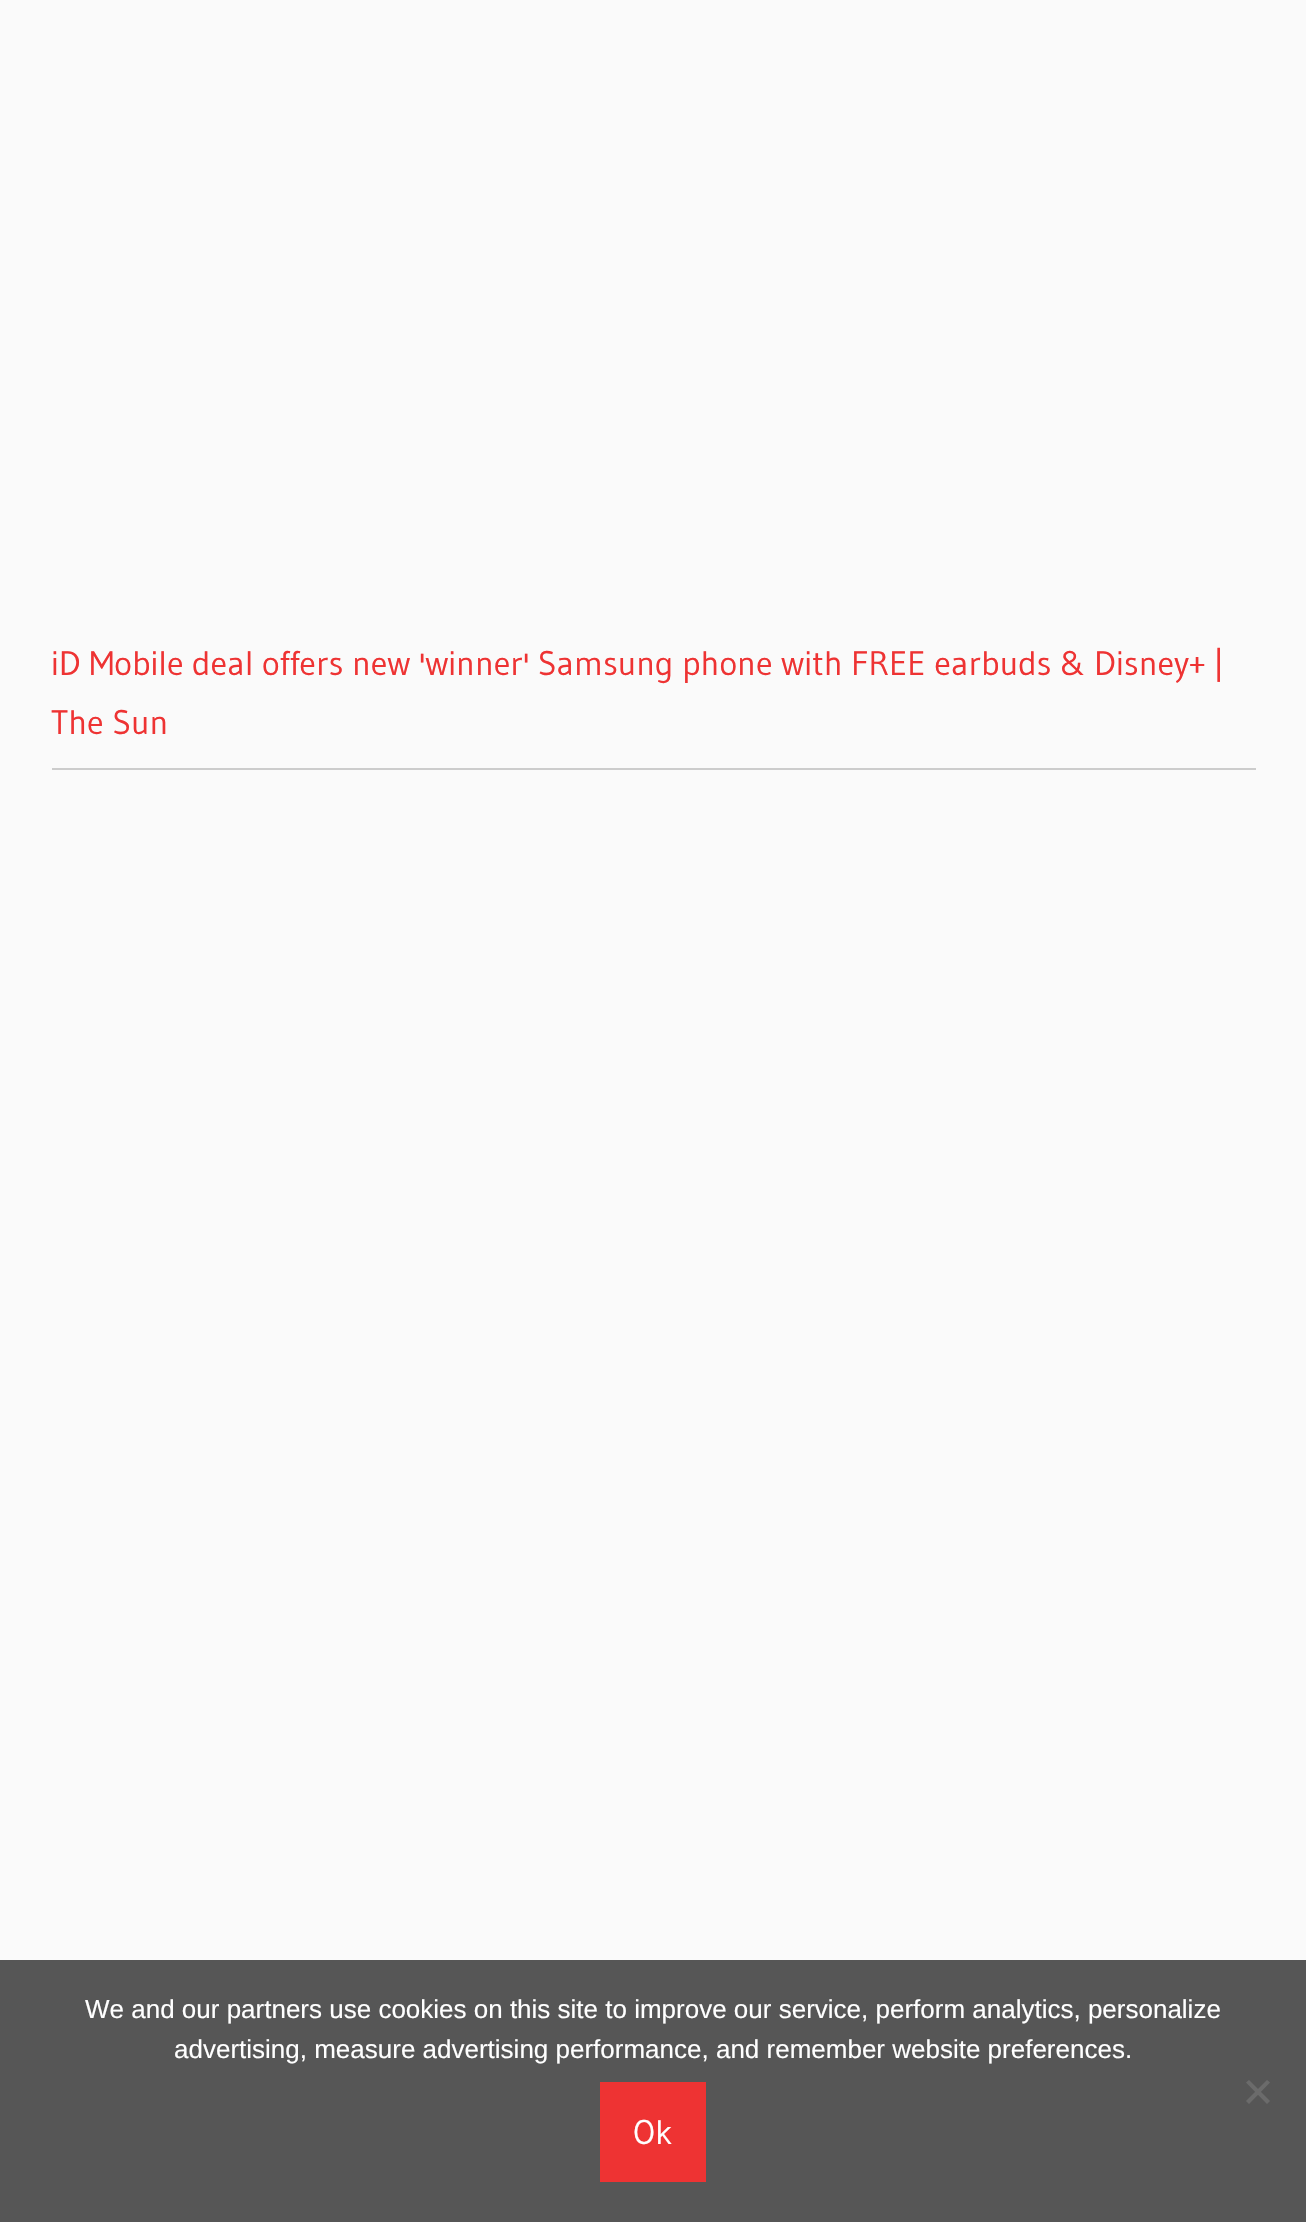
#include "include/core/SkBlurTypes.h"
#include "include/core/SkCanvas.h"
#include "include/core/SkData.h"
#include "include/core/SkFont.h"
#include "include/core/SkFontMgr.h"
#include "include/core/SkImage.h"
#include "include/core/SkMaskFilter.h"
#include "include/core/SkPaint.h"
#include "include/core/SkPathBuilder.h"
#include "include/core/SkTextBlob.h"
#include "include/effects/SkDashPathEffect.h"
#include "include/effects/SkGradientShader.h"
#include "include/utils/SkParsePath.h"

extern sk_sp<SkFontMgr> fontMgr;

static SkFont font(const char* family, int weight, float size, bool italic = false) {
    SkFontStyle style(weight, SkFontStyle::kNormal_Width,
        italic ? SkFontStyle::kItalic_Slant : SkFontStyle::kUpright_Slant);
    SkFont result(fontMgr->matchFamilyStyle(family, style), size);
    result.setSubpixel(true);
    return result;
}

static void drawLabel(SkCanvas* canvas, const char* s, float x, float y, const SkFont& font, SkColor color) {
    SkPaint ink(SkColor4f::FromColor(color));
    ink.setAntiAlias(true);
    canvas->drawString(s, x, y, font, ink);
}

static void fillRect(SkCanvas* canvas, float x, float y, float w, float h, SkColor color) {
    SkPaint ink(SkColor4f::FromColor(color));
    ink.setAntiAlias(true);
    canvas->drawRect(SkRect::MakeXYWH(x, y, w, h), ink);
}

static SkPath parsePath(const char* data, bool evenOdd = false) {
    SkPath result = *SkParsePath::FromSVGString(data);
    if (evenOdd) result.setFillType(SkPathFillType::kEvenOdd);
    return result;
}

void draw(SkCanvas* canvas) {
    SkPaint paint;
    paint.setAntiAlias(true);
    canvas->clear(0xFFFAFAFA);
    SkFont font1 = font("Gudea", 400, 34);
    drawLabel(canvas, "iD Mobile deal offers new 'winner' Samsung phone with FREE earbuds & Disney+ |", 51, 675, font1, 0xFFEE3333);
    drawLabel(canvas, "The Sun", 51, 734, font1, 0xFFEE3333);
    fillRect(canvas, 52, 768, 1204, 2, 0xFFCCCCCC);
    fillRect(canvas, 0, 1960, 1306, 262, 0xFF565656);
    SkFont font2 = font("Liberation Sans", 400, 26);
    drawLabel(canvas, "We and our partners use cookies on this site to improve our service, perform analytics, personalize", 85, 2018, font2, 0xFFFFFFFF);
    drawLabel(canvas, "advertising, measure advertising performance, and remember website preferences.", 174, 2058, font2, 0xFFFFFFFF);
    paint.setColor(0xFF6B6B6B);
    canvas->drawPath(parsePath("M1267 2080L1270 2082.5L1249 2104L1246 2101Z"), paint);
    canvas->drawPath(parsePath("M1246 2082.5L1249 2080L1270 2101L1267 2104Z"), paint);
    fillRect(canvas, 600, 2082, 106, 100, 0xFFEE3333);
    drawLabel(canvas, "Ok", 633, 2144, font1, 0xFFFFFFFF);
}
